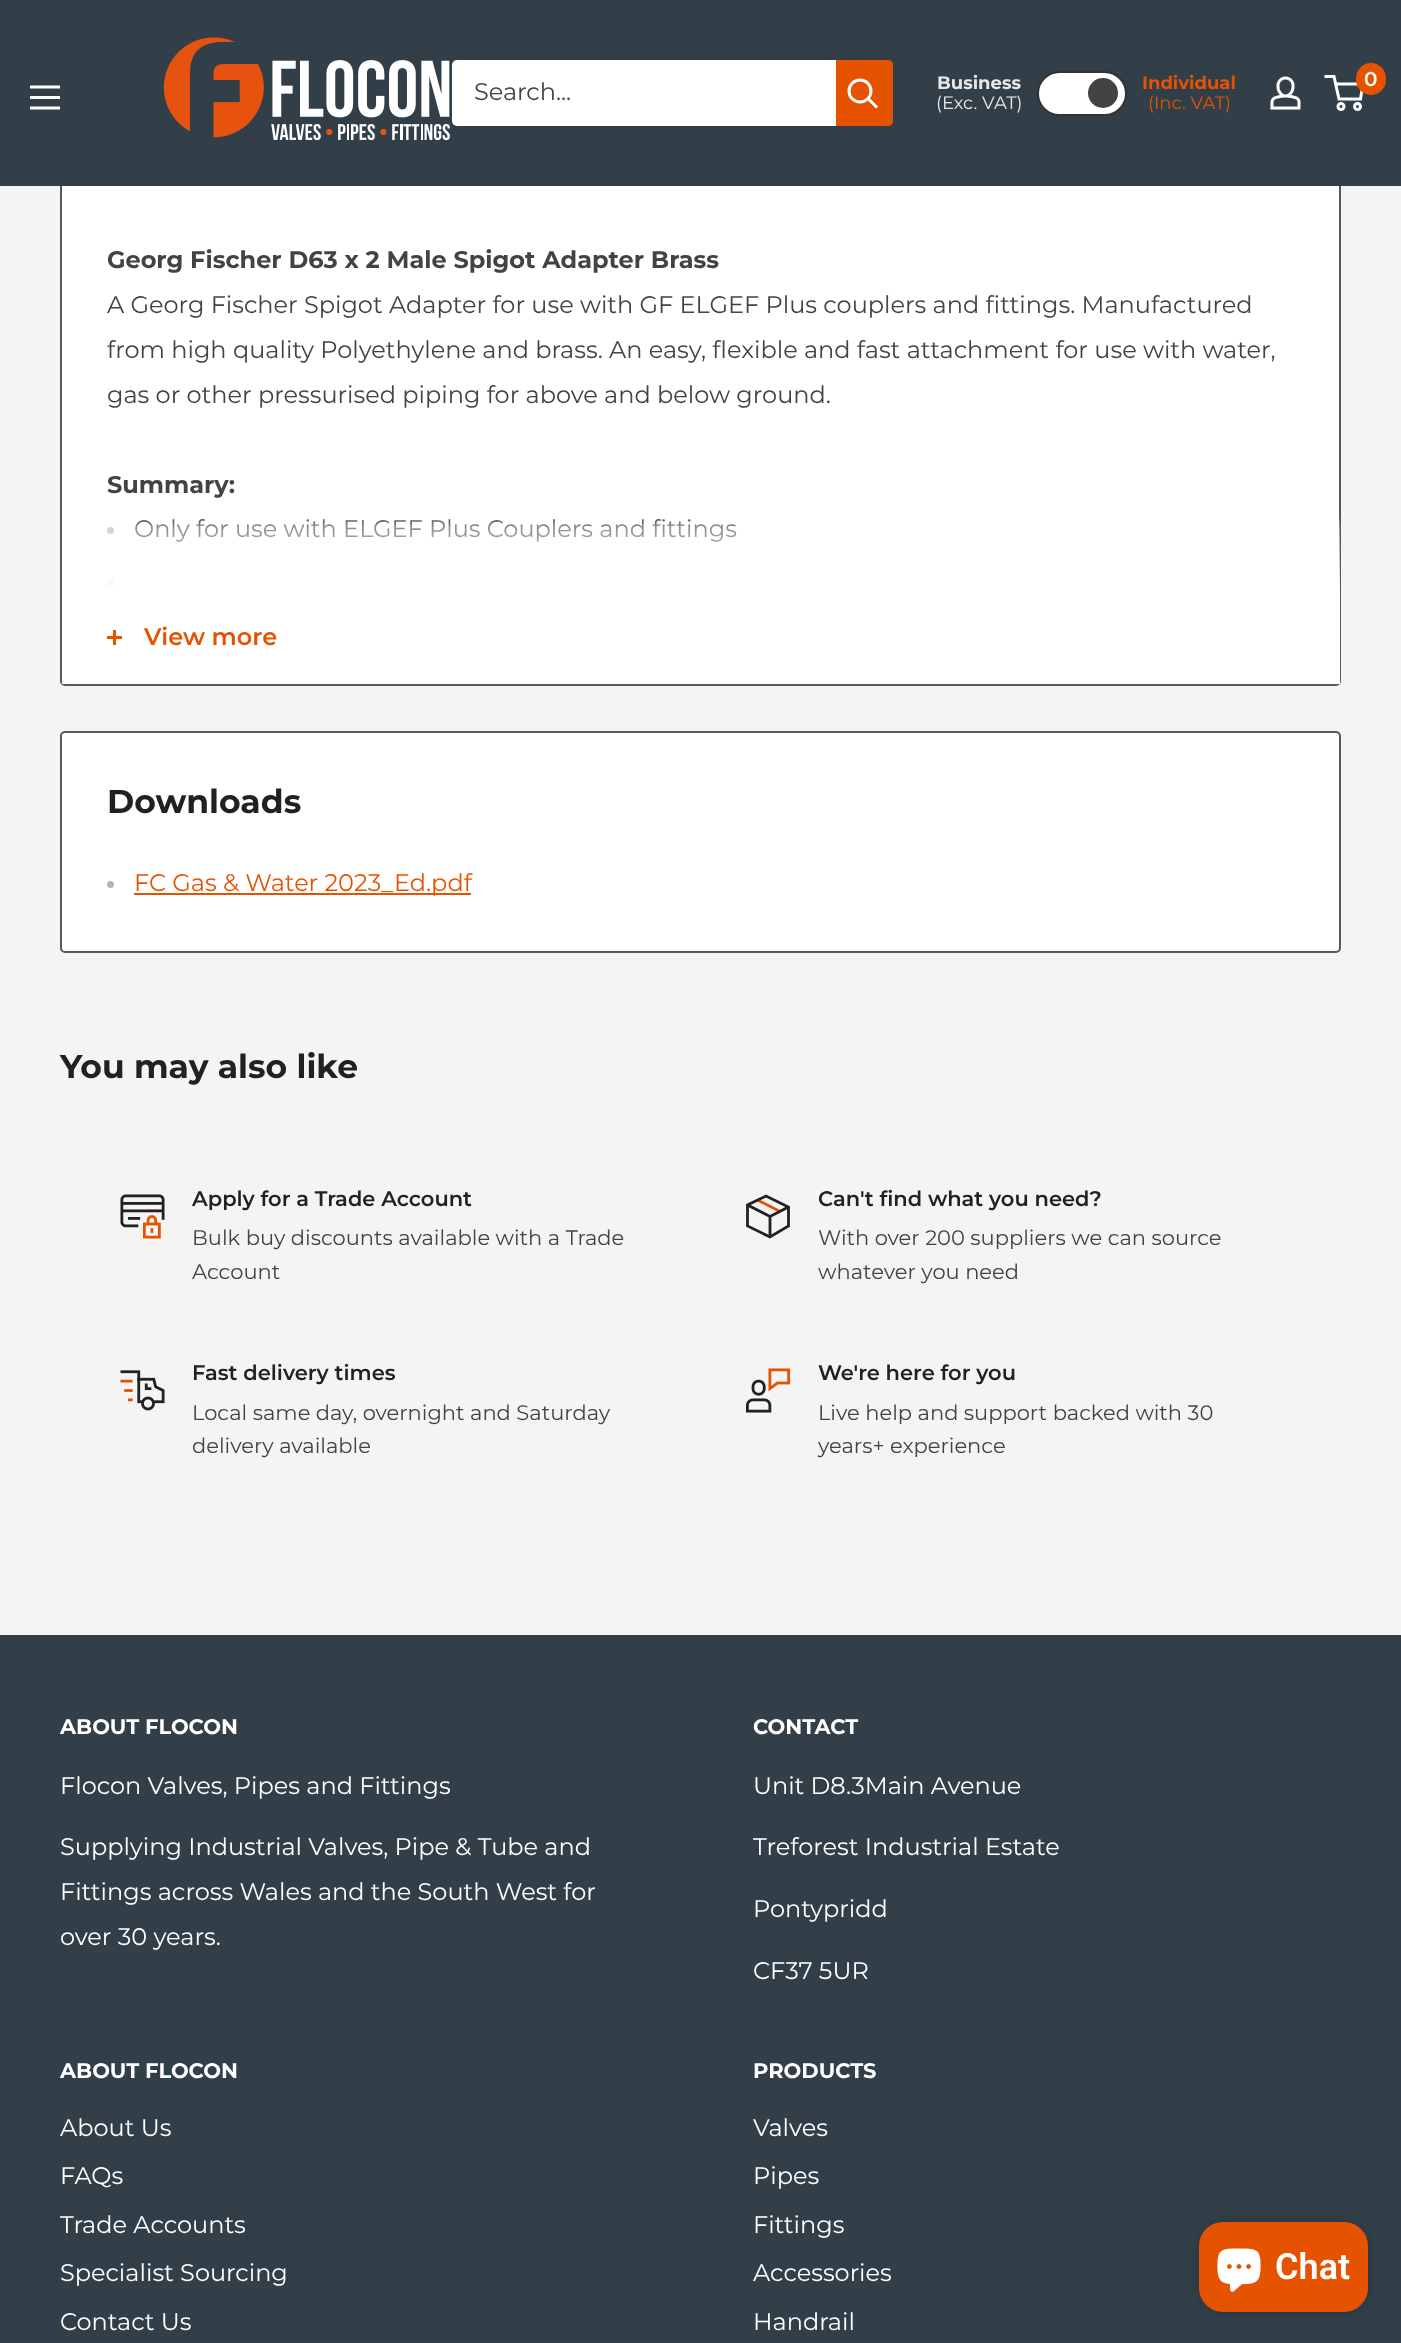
<svg xmlns="http://www.w3.org/2000/svg" width="1401" height="2343">
<defs>
<linearGradient id="g1" gradientUnits="userSpaceOnUse" x1="701" y1="516" x2="701" y2="591"><stop offset="0" stop-color="#fff" stop-opacity="0"/><stop offset="0.15" stop-color="#fff" stop-opacity="0.4"/><stop offset="1" stop-color="#fff"/></linearGradient>
</defs>
<rect width="100%" height="100%" fill="#f4f4f4"/>
<rect x="61" y="109" width="1279" height="576" rx="4" fill="#fff" stroke="#585858" stroke-width="2"/>
<rect width="1401" height="186" fill="#323e48"/>
<image x="30" y="85" width="30" height="25" href="media/1.png"/>
<image x="163" y="37" width="287" height="104" href="media/2.png"/>
<rect x="452" y="60" width="421" height="66" rx="5" fill="#fff"/>
<text x="474" y="100" style="font-family:Montserrat;font-size:24px;fill:#434343">Search...</text>
<path d="M836 60h52c3 0 5 2 5 5v56c0 3-2 5-5 5h-52z" fill="#e65300"/>
<path d="M876 106.5l-7.5-7.5" fill="none" stroke="#fff" stroke-width="3" stroke-linecap="square"/>
<circle cx="860" cy="91" r="11" fill="none" stroke="#fff" stroke-width="3"/>
<text x="937" y="89" style="font-family:Montserrat;font-size:18px;font-weight:bold;fill:#e8e8e8">Business</text>
<text x="936" y="109" style="font-family:Montserrat;font-size:18px;fill:#e8e8e8">(Exc. VAT)</text>
<rect x="1038" y="72" width="88" height="43" rx="21.5" fill="#fff" stroke="#333" stroke-width="2"/>
<circle cx="1103" cy="93" r="15" fill="#434343"/>
<text x="1142" y="89" style="font-family:Montserrat;font-size:18px;font-weight:bold;fill:#e65300">Individual</text>
<text x="1148" y="109" style="font-family:Montserrat;font-size:18px;fill:#e65300">(Inc. VAT)</text>
<image x="1270" y="76" width="31" height="34" href="media/3.png"/>
<circle cx="1341" cy="106.5" r="3" fill="none" stroke="#fff" stroke-width="3"/>
<circle cx="1357.5" cy="106.5" r="3" fill="none" stroke="#fff" stroke-width="3"/>
<path d="M1335.5 84h27.5l-2.5 15h-21.5l-5-22.5h-9.5" fill="none" stroke="#fff" stroke-width="3"/>
<rect x="1356" y="63" width="30" height="32" rx="15" fill="#e65300"/>
<text x="1364" y="86" style="font-family:Montserrat;font-size:20px;font-weight:600;fill:#fff">0</text>
<text x="107" y="268" style="font-family:Montserrat;font-size:24px;font-weight:bold;fill:#434343">Georg Fischer D63 x 2 Male Spigot Adapter Brass</text>
<text x="107" y="313" style="font-family:Montserrat;font-size:24px;fill:#434343">A Georg Fischer Spigot Adapter for use with GF ELGEF Plus couplers and fittings. Manufactured</text>
<text x="107" y="358" style="font-family:Montserrat;font-size:24px;fill:#434343">from high quality Polyethylene and brass. An easy, flexible and fast attachment for use with water,</text>
<text x="107" y="403" style="font-family:Montserrat;font-size:24px;fill:#434343">gas or other pressurised piping for above and below ground.</text>
<text x="107" y="493" style="font-family:Montserrat;font-size:24px;font-weight:bold;fill:#434343">Summary:</text>
<circle cx="110.5" cy="530.5" r="3.5" fill="#b4b4b4"/>
<text x="134" y="537" style="font-family:Montserrat;font-size:24px;fill:#434343">Only for use with ELGEF Plus Couplers and fittings</text>
<rect x="107" y="579" width="7" height="8" rx="3.5" fill="#b4b4b4"/>
<rect x="62" y="591" width="1278" height="93" fill="#fff"/>
<rect x="107" y="517" width="1233" height="74" fill="url(#g1)"/>
<rect x="113" y="630" width="3" height="15" fill="#e65300"/>
<rect x="107" y="636" width="15" height="3" fill="#e65300"/>
<text x="144" y="645" style="font-family:Montserrat;font-size:24px;font-weight:600;fill:#e65300">View more</text>
<rect x="61" y="732" width="1279" height="220" rx="4" fill="#fff" stroke="#585858" stroke-width="2"/>
<text x="107" y="813" style="font-family:Montserrat;font-size:33px;font-weight:bold;fill:#222021">Downloads</text>
<circle cx="110.5" cy="884.5" r="3.5" fill="#b4b4b4"/>
<rect x="134" y="893" width="337" height="2" fill="#e65300"/>
<text x="134" y="891" style="font-family:Montserrat;font-size:24px;fill:#e65300">FC Gas &amp; Water 2023_Ed.pdf</text>
<text x="60" y="1078" style="font-family:Montserrat;font-size:33px;font-weight:bold;fill:#222021">You may also like</text>
<image x="120" y="1194" width="45" height="45" href="media/4.png"/>
<text x="192" y="1206" style="font-family:Montserrat;font-size:21px;font-weight:600;fill:#222021">Apply for a Trade Account</text>
<text x="192" y="1245" style="font-family:Montserrat;font-size:21px;fill:#434343">Bulk buy discounts available with a Trade</text>
<text x="192" y="1279" style="font-family:Montserrat;font-size:21px;fill:#434343">Account</text>
<path d="M757.5 1200l22.5 11.5" fill="none" stroke="#e65300" stroke-width="2.8"/>
<path d="M788.5 1207l-18.5 9.5l-22.5-11.5m22.5 11.5v20.5" fill="none" stroke="#222021" stroke-width="2.8"/>
<path d="M788.5 1207v19l-18.5 11l-22.5-11v-21l18.5-9z" fill="none" stroke="#222021" stroke-width="2.8" stroke-linecap="square"/>
<text x="818" y="1206" style="font-family:Montserrat;font-size:21px;font-weight:600;fill:#222021">Can't find what you need?</text>
<text x="818" y="1245" style="font-family:Montserrat;font-size:21px;fill:#434343">With over 200 suppliers we can source</text>
<text x="818" y="1279" style="font-family:Montserrat;font-size:21px;fill:#434343">whatever you need</text>
<image x="120" y="1370" width="45" height="41" href="media/5.png"/>
<text x="192" y="1380" style="font-family:Montserrat;font-size:21px;font-weight:600;fill:#222021">Fast delivery times</text>
<text x="192" y="1420" style="font-family:Montserrat;font-size:21px;fill:#434343">Local same day, overnight and Saturday</text>
<text x="192" y="1453" style="font-family:Montserrat;font-size:21px;fill:#434343">delivery available</text>
<image x="746" y="1368" width="45" height="45" href="media/6.png"/>
<text x="818" y="1380" style="font-family:Montserrat;font-size:21px;font-weight:600;fill:#222021">We're here for you</text>
<text x="818" y="1420" style="font-family:Montserrat;font-size:21px;fill:#434343">Live help and support backed with 30</text>
<text x="818" y="1453" style="font-family:Montserrat;font-size:21px;fill:#434343">years+ experience</text>
<rect y="1635" width="1401" height="708" fill="#323e48"/>
<text x="60" y="1734" style="font-family:Montserrat;font-size:21px;font-weight:bold;fill:#fff">ABOUT FLOCON</text>
<text x="60" y="1794" style="font-family:Montserrat;font-size:24px;fill:#fff">Flocon Valves, Pipes and Fittings</text>
<text x="60" y="1855" style="font-family:Montserrat;font-size:24px;fill:#fff">Supplying Industrial Valves, Pipe &amp; Tube and</text>
<text x="60" y="1900" style="font-family:Montserrat;font-size:24px;fill:#fff">Fittings across Wales and the South West for</text>
<text x="60" y="1945" style="font-family:Montserrat;font-size:24px;fill:#fff">over 30 years.</text>
<text x="753" y="1734" style="font-family:Montserrat;font-size:21px;font-weight:bold;fill:#fff">CONTACT</text>
<text x="753" y="1794" style="font-family:Montserrat;font-size:24px;fill:#fff">Unit D8.3Main Avenue</text>
<text x="753" y="1855" style="font-family:Montserrat;font-size:24px;fill:#fff">Treforest Industrial Estate</text>
<text x="753" y="1917" style="font-family:Montserrat;font-size:24px;fill:#fff">Pontypridd</text>
<text x="753" y="1979" style="font-family:Montserrat;font-size:24px;fill:#fff">CF37 5UR</text>
<text x="60" y="2078" style="font-family:Montserrat;font-size:21px;font-weight:bold;fill:#fff">ABOUT FLOCON</text>
<text x="60" y="2136" style="font-family:Montserrat;font-size:24px;fill:#fff">About Us</text>
<text x="60" y="2184" style="font-family:Montserrat;font-size:24px;fill:#fff">FAQs</text>
<text x="60" y="2233" style="font-family:Montserrat;font-size:24px;fill:#fff">Trade Accounts</text>
<text x="60" y="2281" style="font-family:Montserrat;font-size:24px;fill:#fff">Specialist Sourcing</text>
<text x="60" y="2330" style="font-family:Montserrat;font-size:24px;fill:#fff">Contact Us</text>
<text x="753" y="2078" style="font-family:Montserrat;font-size:21px;font-weight:bold;fill:#fff">PRODUCTS</text>
<text x="753" y="2136" style="font-family:Montserrat;font-size:24px;fill:#fff">Valves</text>
<text x="753" y="2184" style="font-family:Montserrat;font-size:24px;fill:#fff">Pipes</text>
<text x="753" y="2233" style="font-family:Montserrat;font-size:24px;fill:#fff">Fittings</text>
<text x="753" y="2281" style="font-family:Montserrat;font-size:24px;fill:#fff">Accessories</text>
<text x="753" y="2330" style="font-family:Montserrat;font-size:24px;fill:#fff">Handrail</text>
<rect x="1199" y="2222" width="169" height="90" rx="24" fill="#00000026" filter="blur(4px)"/>
<rect x="1199" y="2222" width="169" height="90" rx="24" fill="#e65300"/>
<image x="1217" y="2248" width="44" height="44" href="media/7.png"/>
<text x="1275" y="2279" style="font-family:Roboto;font-size:36px;font-weight:600;fill:#fff">Chat</text>
</svg>
